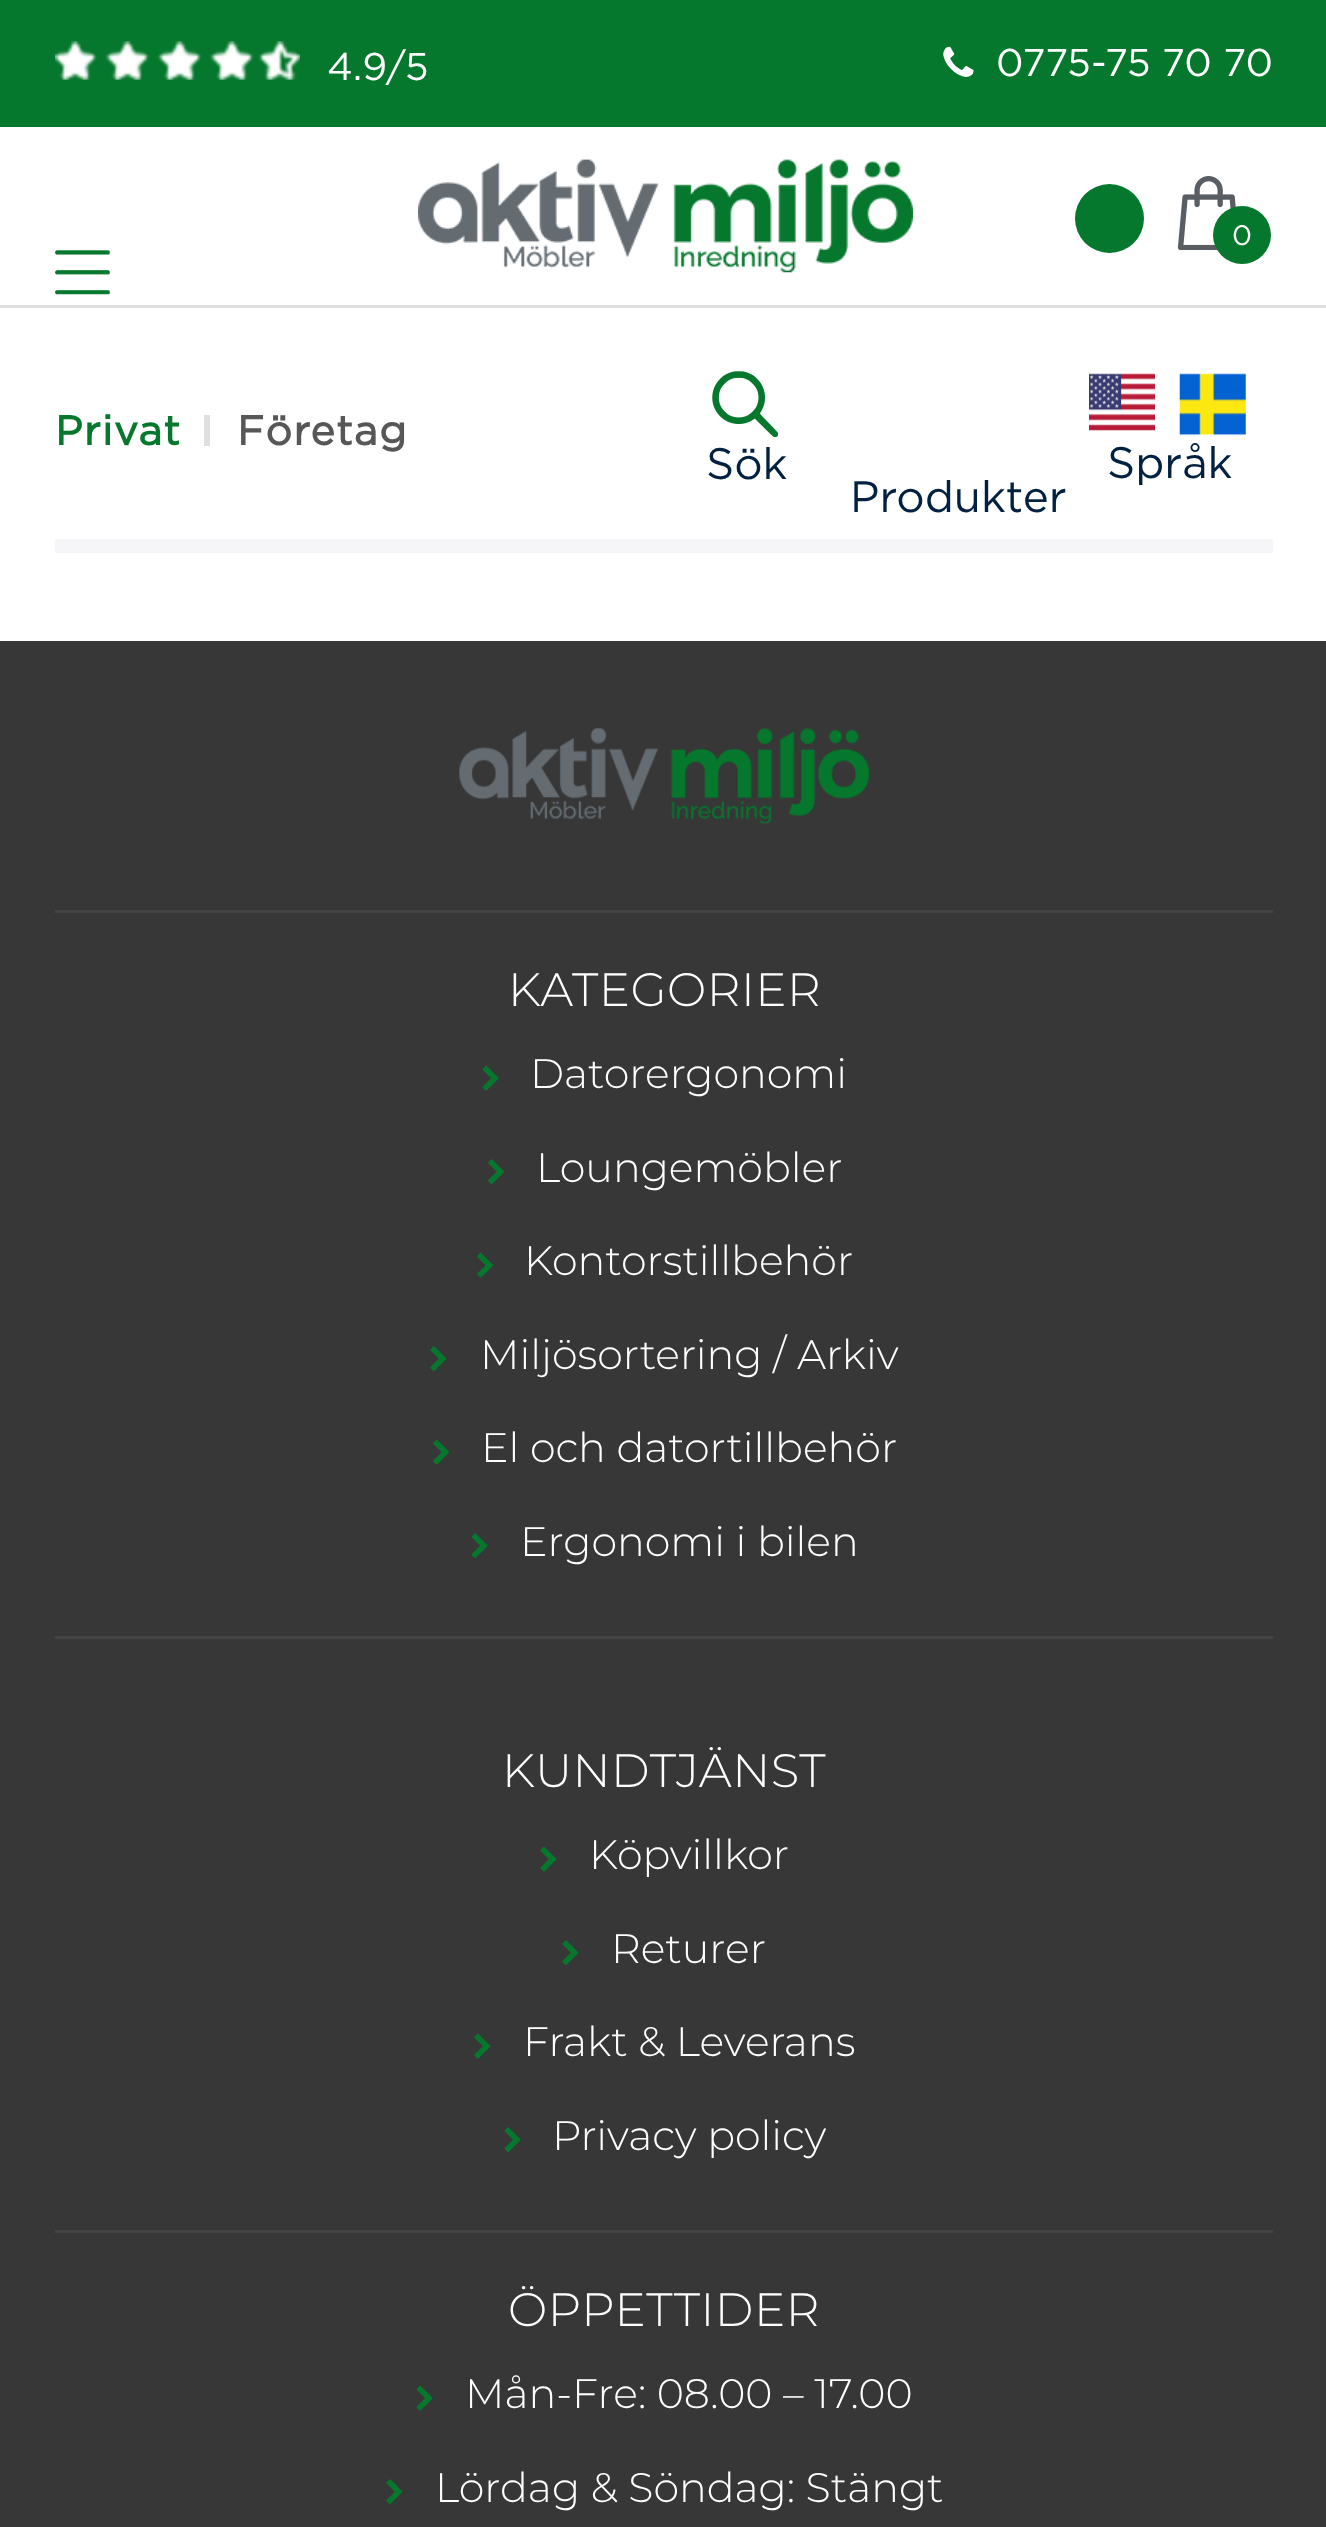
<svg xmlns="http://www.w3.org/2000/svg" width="1326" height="2527">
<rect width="100%" height="100%" fill="#fff"/>
<rect width="1326" height="127" fill="#06782d"/>
<image x="55" y="41" width="245" height="39" href="media/1.png"/>
<text x="327" y="80" style="font-family:Gotham;font-size:38.5px;fill:#fff">4.9/5</text>
<image x="943" y="46" width="31" height="31" href="media/2.png"/>
<text x="996" y="76" style="font-family:Gotham;font-size:38.5px;fill:#fff">0775-75 70 70</text>
<image x="418" y="159" width="495" height="114" href="media/3.png"/>
<circle cx="1109.5" cy="218.5" r="34.5" fill="#06782d"/>
<image x="1177" y="176" width="59" height="74" href="media/4.png"/>
<circle cx="1242" cy="235" r="29" fill="#06782d"/>
<text x="1232" y="245" style="font-family:Gotham;font-size:28px;fill:#fff">0</text>
<rect y="305" width="1326" height="3" fill="#dfdfdf"/>
<text x="55" y="445" style="font-family:Gotham;font-size:41.25px;font-weight:bold;letter-spacing:1.25px;fill:#06782d">Privat</text>
<rect x="204" y="415" width="6" height="31" fill="#dfdfdf"/>
<text x="237" y="445" style="font-family:Gotham;font-size:41.25px;font-weight:bold;letter-spacing:1.25px;fill:#575757">Företag</text>
<image x="712" y="371" width="66" height="66" href="media/5.png"/>
<text x="706" y="479" style="font-family:Gotham;font-size:44px;fill:#022141">Sök</text>
<image x="1089" y="373" width="66" height="58" href="media/6.png"/>
<image x="1179" y="373" width="67" height="63" href="media/7.png"/>
<text x="1107" y="478" style="font-family:Gotham;font-size:44px;fill:#022141">Språk</text>
<text x="850" y="512" style="font-family:Gotham;font-size:44px;fill:#022141">Produkter</text>
<image x="55" y="250" width="55" height="45" href="media/8.png"/>
<rect x="55" y="539" width="1218" height="14" fill="#f6f5f8"/>
<rect y="641" width="1326" height="1886" fill="#373737"/>
<rect x="55" y="910" width="1218" height="3" fill="#454444"/>
<image x="459" y="728" width="410" height="96" href="media/9.png"/>
<rect x="55" y="1636" width="1218" height="3" fill="#454444"/>
<text x="508" y="1006" style="font-family:Montserrat;font-size:46.75px;font-weight:300;letter-spacing:0.5px;fill:#fff">KATEGORIER</text>
<image x="482" y="1065" width="17" height="26" href="media/10.png"/>
<text x="530" y="1088" style="font-family:Montserrat;font-size:41.25px;font-weight:300;fill:#fff">Datorergonomi</text>
<image x="488" y="1159" width="16" height="25" href="media/11.png"/>
<text x="536" y="1182" style="font-family:Montserrat;font-size:41.25px;font-weight:300;fill:#fff">Loungemöbler</text>
<image x="477" y="1252" width="16" height="26" href="media/12.png"/>
<text x="524" y="1275" style="font-family:Montserrat;font-size:41.25px;font-weight:300;fill:#fff">Kontorstillbehör</text>
<image x="430" y="1346" width="17" height="25" href="media/13.png"/>
<text x="480" y="1369" style="font-family:Montserrat;font-size:41.25px;font-weight:300;fill:#fff">Miljösortering / Arkiv</text>
<image x="433" y="1439" width="16" height="26" href="media/12.png"/>
<text x="481" y="1462" style="font-family:Montserrat;font-size:41.25px;font-weight:300;fill:#fff">El och datortillbehör</text>
<image x="471" y="1533" width="17" height="25" href="media/14.png"/>
<text x="520" y="1556" style="font-family:Montserrat;font-size:41.25px;font-weight:300;fill:#fff">Ergonomi i bilen</text>
<rect x="55" y="2230" width="1218" height="3" fill="#454444"/>
<text x="502" y="1787" style="font-family:Montserrat;font-size:46.75px;font-weight:300;letter-spacing:0.5px;fill:#fff">KUNDTJÄNST</text>
<image x="540" y="1846" width="17" height="26" href="media/15.png"/>
<text x="589" y="1869" style="font-family:Montserrat;font-size:41.25px;font-weight:300;fill:#fff">Köpvillkor</text>
<image x="562" y="1940" width="17" height="25" href="media/13.png"/>
<text x="611" y="1963" style="font-family:Montserrat;font-size:41.25px;font-weight:300;fill:#fff">Returer</text>
<image x="474" y="2033" width="17" height="26" href="media/15.png"/>
<text x="523" y="2056" style="font-family:Montserrat;font-size:41.25px;font-weight:300;fill:#fff">Frakt &amp; Leverans</text>
<image x="504" y="2127" width="17" height="25" href="media/14.png"/>
<text x="552" y="2150" style="font-family:Montserrat;font-size:41.25px;font-weight:300;fill:#fff">Privacy policy</text>
<text x="508" y="2326" style="font-family:Montserrat;font-size:46.75px;font-weight:300;letter-spacing:0.5px;fill:#fff">ÖPPETTIDER</text>
<image x="416" y="2385" width="17" height="26" href="media/10.png"/>
<text x="465" y="2408" style="font-family:Montserrat;font-size:41.25px;font-weight:300;fill:#fff">Mån-Fre: 08.00 – 17.00</text>
<image x="386" y="2479" width="17" height="25" href="media/13.png"/>
<text x="435" y="2502" style="font-family:Montserrat;font-size:41.25px;font-weight:300;fill:#fff">Lördag &amp; Söndag: Stängt</text>
</svg>
